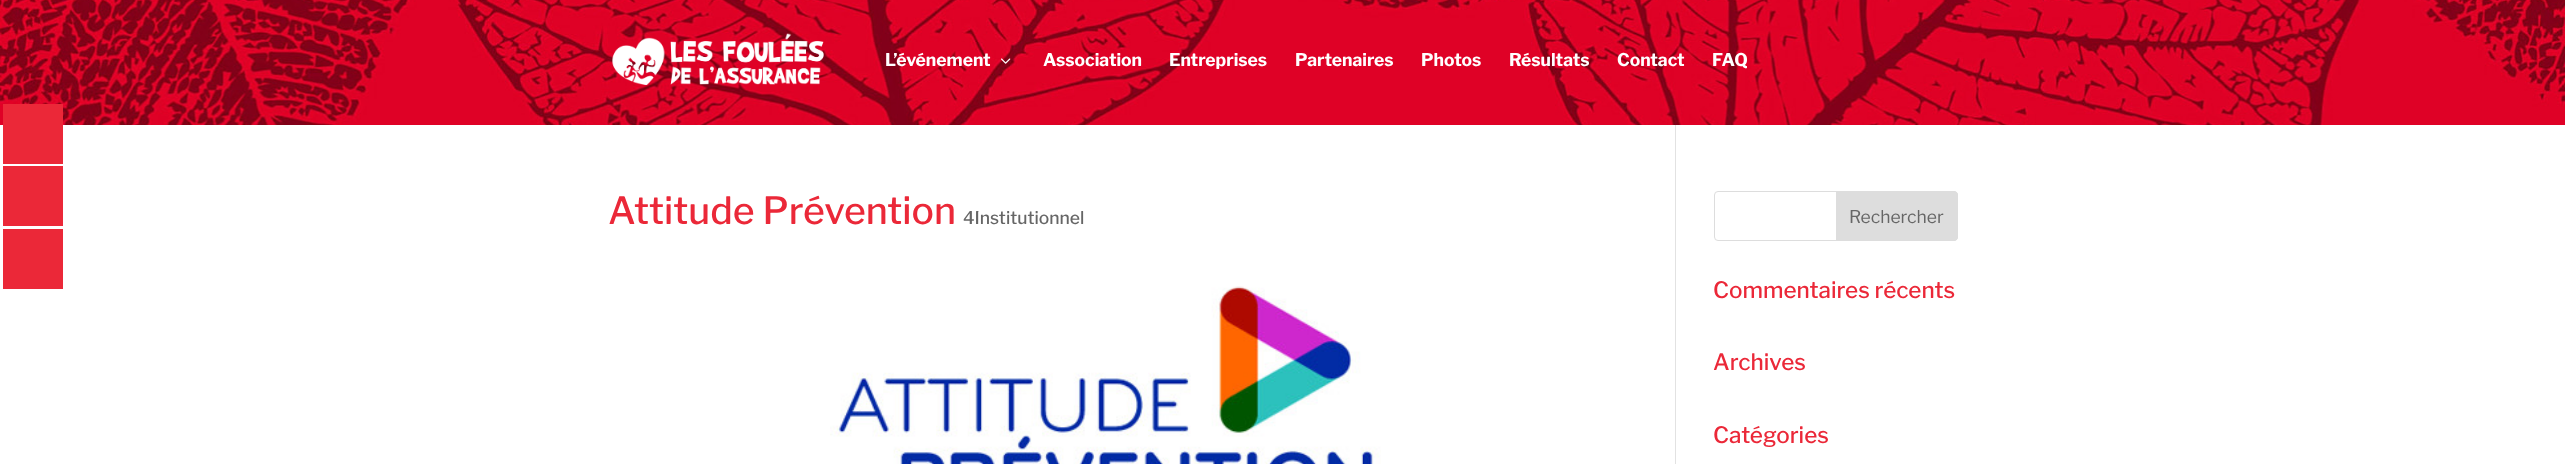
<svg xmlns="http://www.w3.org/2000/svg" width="2565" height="464">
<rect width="100%" height="100%" fill="#fff"/>
<rect x="1675" y="119" width="1" height="345" fill="#e2e2e2"/>
<image x="0" y="0" width="2565" height="125" href="media/1.png"/>
<rect x="3" y="104" width="60" height="60" fill="#eb2838"/>
<rect x="3" y="166" width="60" height="60" fill="#eb2838"/>
<rect x="3" y="229" width="60" height="60" fill="#eb2838"/>
<image x="612" y="33" width="212" height="52" href="media/2.png"/>
<text x="885" y="66" style="font-family:'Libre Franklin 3';font-size:17.5px;font-weight:100;fill:#fff">L’événement</text>
<image x="1001" y="58" width="10" height="6" href="media/3.png"/>
<text x="1043" y="66" style="font-family:'Libre Franklin 3';font-size:17.5px;font-weight:100;fill:#fff">Association</text>
<text x="1169" y="66" style="font-family:'Libre Franklin 3';font-size:17.5px;font-weight:100;fill:#fff">Entreprises</text>
<text x="1295" y="66" style="font-family:'Libre Franklin 3';font-size:17.5px;font-weight:100;fill:#fff">Partenaires</text>
<text x="1421" y="66" style="font-family:'Libre Franklin 3';font-size:17.5px;font-weight:100;fill:#fff">Photos</text>
<text x="1509" y="66" style="font-family:'Libre Franklin 3';font-size:17.5px;font-weight:100;fill:#fff">Résultats</text>
<text x="1617" y="66" style="font-family:'Libre Franklin 3';font-size:17.5px;font-weight:100;fill:#fff">Contact</text>
<text x="1712" y="66" style="font-family:'Libre Franklin 3';font-size:17.5px;font-weight:100;fill:#fff">FAQ</text>
<text x="608" y="224" style="font-family:Libre Franklin;font-size:37.5px;font-weight:100;fill:#eb2838">Attitude Prévention</text>
<text x="963" y="224" style="font-family:Libre Franklin;font-size:17.5px;font-weight:100;fill:#666">4Institutionnel</text>
<image x="830" y="286" width="551" height="178" href="media/4.png"/>
<rect x="1714.5" y="191.5" width="243" height="49" rx="3.5" fill="none" stroke="#ddd"/>
<path d="M1836.5 191.5h117.5c2 0 3.5 1.5 3.5 3.5v42c0 2-1.5 3.5-3.5 3.5h-117.5z" fill="#ddd" stroke="#ddd"/>
<text x="1849" y="223" style="font-family:'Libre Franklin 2';font-size:17.5px;font-weight:100;fill:#666">Rechercher</text>
<text x="1713" y="298" style="font-family:Libre Franklin;font-size:22.5px;font-weight:100;fill:#eb2838">Commentaires récents</text>
<text x="1713" y="370" style="font-family:Libre Franklin;font-size:22.5px;font-weight:100;fill:#eb2838">Archives</text>
<text x="1713" y="443" style="font-family:Libre Franklin;font-size:22.5px;font-weight:100;fill:#eb2838">Catégories</text>
</svg>
